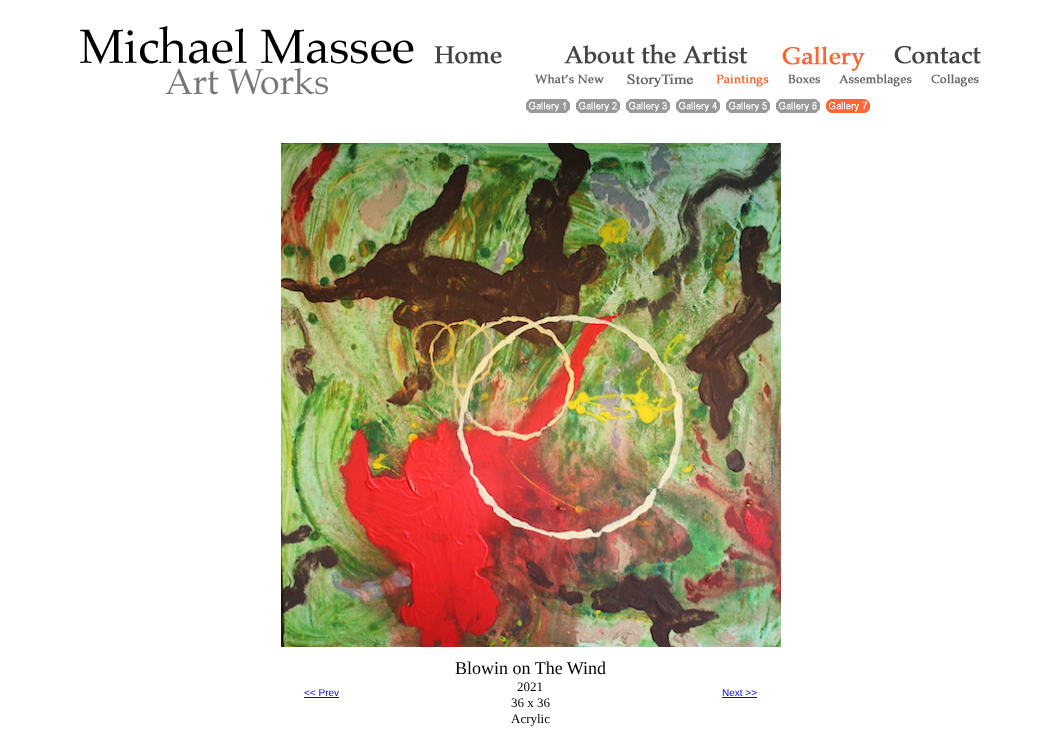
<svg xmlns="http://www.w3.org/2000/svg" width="1061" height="755">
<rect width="100%" height="100%" fill="#fff"/>
<image x="80" y="26" width="334" height="69" href="media/1.png"/>
<image x="434" y="46" width="68" height="18" href="media/2.png"/>
<image x="564" y="44" width="184" height="20" href="media/3.png"/>
<image x="782" y="46" width="83" height="25" href="media/4.png"/>
<image x="894" y="46" width="87" height="18" href="media/5.png"/>
<image x="535" y="74" width="69" height="10" href="media/6.png"/>
<image x="627" y="74" width="66" height="13" href="media/7.png"/>
<image x="716" y="74" width="53" height="13" href="media/8.png"/>
<image x="788" y="74" width="32" height="10" href="media/9.png"/>
<image x="839" y="74" width="73" height="13" href="media/10.png"/>
<image x="931" y="74" width="48" height="13" href="media/11.png"/>
<image x="526" y="99" width="44" height="14" href="media/12.png"/>
<image x="576" y="99" width="44" height="14" href="media/13.png"/>
<image x="626" y="99" width="44" height="14" href="media/14.png"/>
<image x="676" y="99" width="44" height="14" href="media/15.png"/>
<image x="726" y="99" width="44" height="14" href="media/16.png"/>
<image x="776" y="99" width="44" height="14" href="media/17.png"/>
<image x="826" y="99" width="44" height="14" href="media/18.png"/>
<image x="281" y="143" width="500" height="504" href="media/19.png"/>
<text x="304" y="696" style="font-family:Liberation Sans;font-size:10px;fill:#00f">&lt;&lt; Prev</text>
<rect x="304" y="697" width="35" height="1" fill="#00f"/>
<text x="455" y="674" style="font-family:Liberation Serif;font-size:18px;fill:#000">Blowin on The Wind</text>
<text x="517" y="691" style="font-family:Liberation Serif;font-size:13px;fill:#000">2021</text>
<text x="511" y="707" style="font-family:Liberation Serif;font-size:13px;fill:#000">36 x 36</text>
<text x="511" y="723" style="font-family:Liberation Serif;font-size:13px;fill:#000">Acrylic</text>
<text x="722" y="696" style="font-family:Liberation Sans;font-size:10px;fill:#00f">Next &gt;&gt;</text>
<rect x="722" y="697" width="35" height="1" fill="#00f"/>
</svg>
